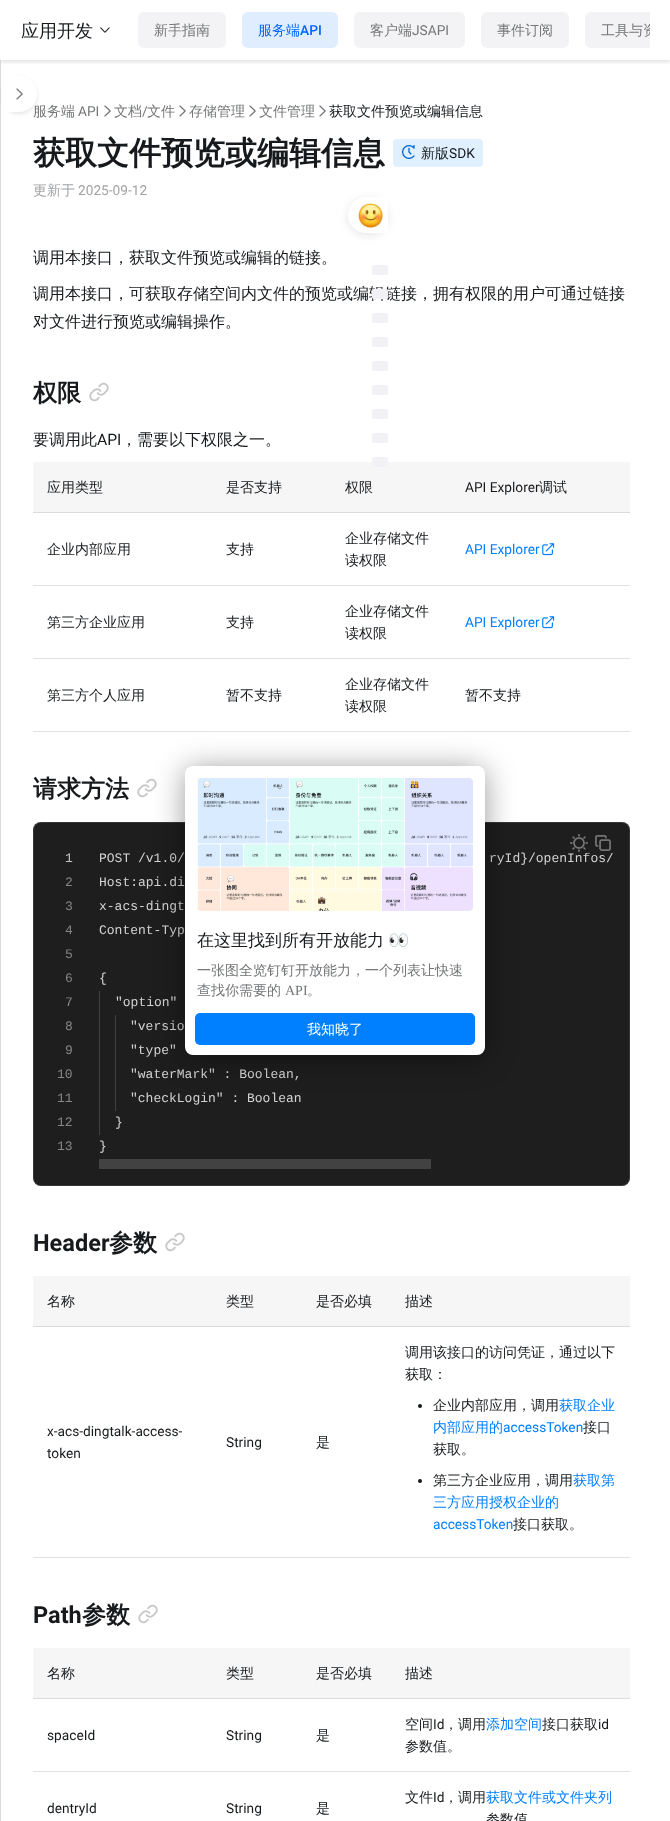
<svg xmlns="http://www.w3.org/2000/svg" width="670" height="1821">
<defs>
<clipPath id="clip1"><rect x="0" y="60" width="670" height="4"/></clipPath>
<clipPath id="clip2"><rect x="138" y="12" width="512" height="36"/></clipPath>
</defs>
<rect width="100%" height="100%" fill="#fff"/>
<rect y="60" width="1" height="1761" fill="#f6f6f6"/>
<g clip-path="url(#clip1)">
<rect y="2" width="670" height="60" fill="#0000001f" filter="blur(2px)"/>
</g>
<text x="21" y="37" style="font-family:WenQuanYi Zen Hei;font-size:18px;font-weight:500;fill:#171a1d">应用开发</text>
<image x="100" y="27" width="10" height="6" href="media/1.png"/>
<rect x="138" y="12" width="88" height="36" rx="6" fill="#f3f3f5"/>
<text x="154" y="35" style="font-family:WenQuanYi Zen Hei;font-size:14px;font-weight:500;fill:#747677">新手指南</text>
<rect x="242" y="12" width="96" height="36" rx="6" fill="#e0edff"/>
<text x="258" y="35" style="font-family:WenQuanYi Zen Hei;font-size:14px;font-weight:500;fill:#06f">服务端</text>
<text x="300" y="35" style="font-family:Roboto;font-size:14px;font-weight:500;fill:#06f">API</text>
<rect x="354" y="12" width="111" height="36" rx="6" fill="#f3f3f5"/>
<text x="370" y="35" style="font-family:WenQuanYi Zen Hei;font-size:14px;font-weight:500;fill:#747677">客户端</text>
<text x="412" y="35" style="font-family:Roboto;font-size:14px;fill:#747677">JSAPI</text>
<rect x="481" y="12" width="88" height="36" rx="6" fill="#f3f3f5"/>
<text x="497" y="35" style="font-family:WenQuanYi Zen Hei;font-size:14px;font-weight:500;fill:#747677">事件订阅</text>
<path d="M591 12h59v36h-59c-3.5 0-6-2.5-6-6v-24c0-3.5 2.5-6 6-6z" fill="#f3f3f5"/>
<g clip-path="url(#clip2)">
<text x="601" y="35" style="font-family:WenQuanYi Zen Hei;font-size:14px;font-weight:500;fill:#747677">工具与资</text>
</g>
<rect y="60" width="1" height="1761" fill="#7e868e3d"/>
<rect x="1" y="78" width="36" height="36" rx="18" fill="#0000001a" filter="blur(2px)"/>
<text x="33" y="116" style="font-family:WenQuanYi Zen Hei;font-size:14px;font-weight:500;fill:#747677">服务端</text>
<path d="M1 76h18c10 0 18 8 18 18c0 10-8 18-18 18h-18z" fill="#fff"/>
<image x="16" y="88" width="7" height="12" href="media/2.png"/>
<text x="78" y="116" style="font-family:Roboto;font-size:14px;fill:#747677">API</text>
<image x="104" y="105" width="7" height="12" href="media/2.png"/>
<text x="114" y="116" style="font-family:WenQuanYi Zen Hei;font-size:14px;font-weight:500;fill:#747677">文档</text>
<text x="142" y="116" style="font-family:Roboto;font-size:14px;fill:#747677">/</text>
<text x="147" y="116" style="font-family:WenQuanYi Zen Hei;font-size:14px;font-weight:500;fill:#747677">文件</text>
<image x="179" y="105" width="7" height="12" href="media/2.png"/>
<text x="189" y="116" style="font-family:WenQuanYi Zen Hei;font-size:14px;font-weight:500;fill:#747677">存储管理</text>
<image x="249" y="105" width="7" height="12" href="media/2.png"/>
<text x="259" y="116" style="font-family:WenQuanYi Zen Hei;font-size:14px;font-weight:500;fill:#747677">文件管理</text>
<image x="319" y="105" width="7" height="12" href="media/2.png"/>
<text x="329" y="116" style="font-family:WenQuanYi Zen Hei;font-size:14px;font-weight:500;fill:#171a1d">获取文件预览或编辑信息</text>
<text x="33" y="164" style="font-family:WenQuanYi Zen Hei;font-size:32px;font-weight:bold;fill:#171a1d">获取文件预览或编辑信息</text>
<rect x="393" y="139" width="90" height="28" rx="4" fill="#e0f0ff"/>
<image x="402" y="145" width="13" height="14" href="media/3.png"/>
<text x="421" y="158" style="font-family:WenQuanYi Zen Hei;font-size:14px;font-weight:500;fill:#171a1d">新版</text>
<text x="449" y="158" style="font-family:Roboto;font-size:14px;fill:#171a1d">SDK</text>
<text x="33" y="195" style="font-family:WenQuanYi Zen Hei;font-size:14px;font-weight:500;fill:#a2a3a5">更新于</text>
<text x="78" y="195" style="font-family:Roboto;font-size:14px;fill:#a2a3a5">2025-09-12</text>
<text x="33" y="263" style="font-family:WenQuanYi Zen Hei;font-size:16px;font-weight:500;fill:#171a1d">调用本接口，获取文件预览或编辑的链接。</text>
<text x="33" y="299" style="font-family:WenQuanYi Zen Hei;font-size:16px;font-weight:500;fill:#171a1d">调用本接口，可获取存储空间内文件的预览或编辑链接，拥有权限的用户可通过链接</text>
<text x="33" y="327" style="font-family:WenQuanYi Zen Hei;font-size:16px;font-weight:500;fill:#171a1d">对文件进行预览或编辑操作。</text>
<text x="33" y="401" style="font-family:WenQuanYi Zen Hei;font-size:24px;font-weight:bold;fill:#171a1d">权限</text>
<image x="89" y="382" width="20" height="20" href="media/4.png"/>
<text x="33" y="445" style="font-family:WenQuanYi Zen Hei;font-size:16px;font-weight:500;fill:#171a1d">要调用此</text>
<text x="97" y="445" style="font-family:Roboto;font-size:16px;fill:#171a1d">API</text>
<text x="121" y="445" style="font-family:WenQuanYi Zen Hei;font-size:16px;font-weight:500;fill:#171a1d">，需要以下权限之一。</text>
<rect x="33" y="512" width="597" height="1" fill="#d9dbdd"/>
<rect x="33" y="462" width="597" height="50" fill="#f6f6f6"/>
<text x="47" y="492" style="font-family:WenQuanYi Zen Hei;font-size:14px;font-weight:500;fill:#171a1d">应用类型</text>
<text x="226" y="492" style="font-family:WenQuanYi Zen Hei;font-size:14px;font-weight:500;fill:#171a1d">是否支持</text>
<text x="345" y="492" style="font-family:WenQuanYi Zen Hei;font-size:14px;font-weight:500;fill:#171a1d">权限</text>
<text x="465" y="492" style="font-family:Roboto;font-size:14px;fill:#171a1d">API Explorer</text>
<text x="539" y="492" style="font-family:WenQuanYi Zen Hei;font-size:14px;font-weight:500;fill:#171a1d">调试</text>
<rect x="33" y="585" width="597" height="1" fill="#e0e2e4"/>
<text x="47" y="554" style="font-family:WenQuanYi Zen Hei;font-size:14px;font-weight:500;fill:#171a1d">企业内部应用</text>
<text x="226" y="554" style="font-family:WenQuanYi Zen Hei;font-size:14px;font-weight:500;fill:#171a1d">支持</text>
<text x="345" y="543" style="font-family:WenQuanYi Zen Hei;font-size:14px;font-weight:500;fill:#171a1d">企业存储文件</text>
<text x="345" y="565" style="font-family:WenQuanYi Zen Hei;font-size:14px;font-weight:500;fill:#171a1d">读权限</text>
<text x="465" y="554" style="font-family:Roboto;font-size:14px;fill:#007fff">API Explorer</text>
<image x="542" y="543" width="13" height="13" href="media/5.png"/>
<rect x="33" y="658" width="597" height="1" fill="#e0e2e4"/>
<text x="47" y="627" style="font-family:WenQuanYi Zen Hei;font-size:14px;font-weight:500;fill:#171a1d">第三方企业应用</text>
<text x="226" y="627" style="font-family:WenQuanYi Zen Hei;font-size:14px;font-weight:500;fill:#171a1d">支持</text>
<text x="345" y="616" style="font-family:WenQuanYi Zen Hei;font-size:14px;font-weight:500;fill:#171a1d">企业存储文件</text>
<text x="345" y="638" style="font-family:WenQuanYi Zen Hei;font-size:14px;font-weight:500;fill:#171a1d">读权限</text>
<text x="465" y="627" style="font-family:Roboto;font-size:14px;fill:#007fff">API Explorer</text>
<image x="542" y="616" width="13" height="13" href="media/5.png"/>
<rect x="33" y="731" width="597" height="1" fill="#e0e2e4"/>
<text x="47" y="700" style="font-family:WenQuanYi Zen Hei;font-size:14px;font-weight:500;fill:#171a1d">第三方个人应用</text>
<text x="226" y="700" style="font-family:WenQuanYi Zen Hei;font-size:14px;font-weight:500;fill:#171a1d">暂不支持</text>
<text x="345" y="689" style="font-family:WenQuanYi Zen Hei;font-size:14px;font-weight:500;fill:#171a1d">企业存储文件</text>
<text x="345" y="711" style="font-family:WenQuanYi Zen Hei;font-size:14px;font-weight:500;fill:#171a1d">读权限</text>
<text x="465" y="700" style="font-family:WenQuanYi Zen Hei;font-size:14px;font-weight:500;fill:#171a1d">暂不支持</text>
<text x="33" y="797" style="font-family:WenQuanYi Zen Hei;font-size:24px;font-weight:bold;fill:#171a1d">请求方法</text>
<image x="137" y="778" width="20" height="20" href="media/4.png"/>
<rect x="33" y="822" width="597" height="364" rx="8" fill="#1e1e1e"/>
<rect x="33.5" y="822.5" width="596" height="363" rx="7.5" fill="none" stroke="#7e868e3d"/>
<text x="489" y="862" style="font-family:Liberation Mono;font-size:13px;fill:#d4d4d4">ryId}/openInfos/</text>
<rect x="586" y="852" width="3" height="1" fill="#1e1e1e"/>
<image x="570" y="834" width="18" height="18" href="media/6.png"/>
<rect x="611" y="852" width="2" height="1" fill="#1e1e1e"/>
<image x="595" y="835" width="16" height="16" href="media/7.png"/>
<text x="65" y="862" style="font-family:Liberation Mono;font-size:13px;fill:#c6c6c6">1</text>
<text x="65" y="886" style="font-family:Liberation Mono;font-size:13px;fill:#858585">2</text>
<text x="65" y="910" style="font-family:Liberation Mono;font-size:13px;fill:#858585">3</text>
<text x="65" y="934" style="font-family:Liberation Mono;font-size:13px;fill:#858585">4</text>
<text x="65" y="958" style="font-family:Liberation Mono;font-size:13px;fill:#858585">5</text>
<text x="65" y="982" style="font-family:Liberation Mono;font-size:13px;fill:#858585">6</text>
<text x="65" y="1006" style="font-family:Liberation Mono;font-size:13px;fill:#858585">7</text>
<text x="65" y="1030" style="font-family:Liberation Mono;font-size:13px;fill:#858585">8</text>
<text x="65" y="1054" style="font-family:Liberation Mono;font-size:13px;fill:#858585">9</text>
<text x="57" y="1078" style="font-family:Liberation Mono;font-size:13px;fill:#858585">10</text>
<text x="57" y="1102" style="font-family:Liberation Mono;font-size:13px;fill:#858585">11</text>
<text x="57" y="1126" style="font-family:Liberation Mono;font-size:13px;fill:#858585">12</text>
<text x="57" y="1150" style="font-family:Liberation Mono;font-size:13px;fill:#858585">13</text>
<text x="99" y="862" style="font-family:Liberation Mono;font-size:13px;fill:#d4d4d4">POST /v1.0/</text>
<text x="99" y="886" style="font-family:Liberation Mono;font-size:13px;fill:#d4d4d4">Host:api.di</text>
<text x="99" y="910" style="font-family:Liberation Mono;font-size:13px;fill:#d4d4d4">x-acs-dingt</text>
<text x="99" y="934" style="font-family:Liberation Mono;font-size:13px;fill:#d4d4d4">Content-Typ</text>
<text x="99" y="982" style="font-family:Liberation Mono;font-size:13px;fill:#d4d4d4">{</text>
<text x="115" y="1006" style="font-family:Liberation Mono;font-size:13px;fill:#d4d4d4">"option"</text>
<text x="130" y="1030" style="font-family:Liberation Mono;font-size:13px;fill:#d4d4d4">"versio</text>
<text x="130" y="1054" style="font-family:Liberation Mono;font-size:13px;fill:#d4d4d4">"type"</text>
<text x="130" y="1078" style="font-family:Liberation Mono;font-size:13px;fill:#d4d4d4">"waterMark" : Boolean,</text>
<text x="130" y="1102" style="font-family:Liberation Mono;font-size:13px;fill:#d4d4d4">"checkLogin" : Boolean</text>
<text x="115" y="1126" style="font-family:Liberation Mono;font-size:13px;fill:#d4d4d4">}</text>
<text x="99" y="1150" style="font-family:Liberation Mono;font-size:13px;fill:#d4d4d4">}</text>
<rect x="99" y="991" width="1" height="144" fill="#404040"/>
<rect x="115" y="1015" width="1" height="96" fill="#404040"/>
<rect x="99" y="1159" width="332" height="10" fill="#424242"/>
<text x="33" y="1251" style="font-family:Roboto;font-size:24px;font-weight:bold;fill:#171a1d">Header</text>
<text x="109" y="1251" style="font-family:WenQuanYi Zen Hei;font-size:24px;font-weight:bold;fill:#171a1d">参数</text>
<image x="165" y="1232" width="20" height="20" href="media/4.png"/>
<rect x="33" y="1326" width="597" height="1" fill="#d9dbdd"/>
<rect x="33" y="1276" width="597" height="50" fill="#f6f6f6"/>
<text x="47" y="1306" style="font-family:WenQuanYi Zen Hei;font-size:14px;font-weight:500;fill:#171a1d">名称</text>
<text x="226" y="1306" style="font-family:WenQuanYi Zen Hei;font-size:14px;font-weight:500;fill:#171a1d">类型</text>
<text x="316" y="1306" style="font-family:WenQuanYi Zen Hei;font-size:14px;font-weight:500;fill:#171a1d">是否必填</text>
<text x="405" y="1306" style="font-family:WenQuanYi Zen Hei;font-size:14px;font-weight:500;fill:#171a1d">描述</text>
<rect x="33" y="1557" width="597" height="1" fill="#e0e2e4"/>
<text x="47" y="1436" style="font-family:Roboto;font-size:14px;fill:#171a1d">x-acs-dingtalk-access-</text>
<text x="47" y="1458" style="font-family:Roboto;font-size:14px;fill:#171a1d">token</text>
<text x="226" y="1447" style="font-family:Roboto;font-size:14px;fill:#171a1d">String</text>
<text x="316" y="1447" style="font-family:WenQuanYi Zen Hei;font-size:14px;font-weight:500;fill:#171a1d">是</text>
<text x="405" y="1357" style="font-family:WenQuanYi Zen Hei;font-size:14px;font-weight:500;fill:#171a1d">调用该接口的访问凭证，通过以下</text>
<text x="405" y="1379" style="font-family:WenQuanYi Zen Hei;font-size:14px;font-weight:500;fill:#171a1d">获取：</text>
<circle cx="420" cy="1406" r="2" fill="#171a1d"/>
<text x="433" y="1410" style="font-family:WenQuanYi Zen Hei;font-size:14px;font-weight:500;fill:#171a1d">企业内部应用，调用</text>
<text x="559" y="1410" style="font-family:WenQuanYi Zen Hei;font-size:14px;font-weight:500;fill:#007fff">获取企业</text>
<text x="433" y="1432" style="font-family:WenQuanYi Zen Hei;font-size:14px;font-weight:500;fill:#007fff">内部应用的</text>
<text x="503" y="1432" style="font-family:Roboto;font-size:14px;fill:#007fff">accessToken</text>
<text x="583" y="1432" style="font-family:WenQuanYi Zen Hei;font-size:14px;font-weight:500;fill:#171a1d">接口</text>
<text x="433" y="1454" style="font-family:WenQuanYi Zen Hei;font-size:14px;font-weight:500;fill:#171a1d">获取。</text>
<circle cx="420" cy="1481" r="2" fill="#171a1d"/>
<text x="433" y="1485" style="font-family:WenQuanYi Zen Hei;font-size:14px;font-weight:500;fill:#171a1d">第三方企业应用，调用</text>
<text x="573" y="1485" style="font-family:WenQuanYi Zen Hei;font-size:14px;font-weight:500;fill:#007fff">获取第</text>
<text x="433" y="1507" style="font-family:WenQuanYi Zen Hei;font-size:14px;font-weight:500;fill:#007fff">三方应用授权企业的</text>
<text x="433" y="1529" style="font-family:Roboto;font-size:14px;fill:#007fff">accessToken</text>
<text x="513" y="1529" style="font-family:WenQuanYi Zen Hei;font-size:14px;font-weight:500;fill:#171a1d">接口获取。</text>
<text x="33" y="1623" style="font-family:Roboto;font-size:24px;font-weight:bold;fill:#171a1d">Path</text>
<text x="82" y="1623" style="font-family:WenQuanYi Zen Hei;font-size:24px;font-weight:bold;fill:#171a1d">参数</text>
<image x="138" y="1604" width="20" height="20" href="media/4.png"/>
<rect x="33" y="1698" width="597" height="1" fill="#d9dbdd"/>
<rect x="33" y="1648" width="597" height="50" fill="#f6f6f6"/>
<text x="47" y="1678" style="font-family:WenQuanYi Zen Hei;font-size:14px;font-weight:500;fill:#171a1d">名称</text>
<text x="226" y="1678" style="font-family:WenQuanYi Zen Hei;font-size:14px;font-weight:500;fill:#171a1d">类型</text>
<text x="316" y="1678" style="font-family:WenQuanYi Zen Hei;font-size:14px;font-weight:500;fill:#171a1d">是否必填</text>
<text x="405" y="1678" style="font-family:WenQuanYi Zen Hei;font-size:14px;font-weight:500;fill:#171a1d">描述</text>
<rect x="33" y="1771" width="597" height="1" fill="#e0e2e4"/>
<text x="47" y="1740" style="font-family:Roboto;font-size:14px;fill:#171a1d">spaceId</text>
<text x="226" y="1740" style="font-family:Roboto;font-size:14px;fill:#171a1d">String</text>
<text x="316" y="1740" style="font-family:WenQuanYi Zen Hei;font-size:14px;font-weight:500;fill:#171a1d">是</text>
<text x="405" y="1729" style="font-family:WenQuanYi Zen Hei;font-size:14px;font-weight:500;fill:#171a1d">空间</text>
<text x="433" y="1729" style="font-family:Roboto;font-size:14px;fill:#171a1d">Id</text>
<text x="444" y="1729" style="font-family:WenQuanYi Zen Hei;font-size:14px;font-weight:500;fill:#171a1d">，调用</text>
<text x="486" y="1729" style="font-family:WenQuanYi Zen Hei;font-size:14px;font-weight:500;fill:#007fff">添加空间</text>
<text x="542" y="1729" style="font-family:WenQuanYi Zen Hei;font-size:14px;font-weight:500;fill:#171a1d">接口获取</text>
<text x="598" y="1729" style="font-family:Roboto;font-size:14px;fill:#171a1d">id</text>
<text x="405" y="1751" style="font-family:WenQuanYi Zen Hei;font-size:14px;font-weight:500;fill:#171a1d">参数值。</text>
<text x="47" y="1813" style="font-family:Roboto;font-size:14px;fill:#171a1d">dentryId</text>
<text x="226" y="1813" style="font-family:Roboto;font-size:14px;fill:#171a1d">String</text>
<text x="316" y="1813" style="font-family:WenQuanYi Zen Hei;font-size:14px;font-weight:500;fill:#171a1d">是</text>
<text x="405" y="1802" style="font-family:WenQuanYi Zen Hei;font-size:14px;font-weight:500;fill:#171a1d">文件</text>
<text x="433" y="1802" style="font-family:Roboto;font-size:14px;fill:#171a1d">Id</text>
<text x="444" y="1802" style="font-family:WenQuanYi Zen Hei;font-size:14px;font-weight:500;fill:#171a1d">，调用</text>
<text x="486" y="1802" style="font-family:WenQuanYi Zen Hei;font-size:14px;font-weight:500;fill:#007fff">获取文件或文件夹列</text>
<text x="486" y="1824" style="font-family:WenQuanYi Zen Hei;font-size:14px;font-weight:500;fill:#171a1d">参数值</text>
<rect x="348" y="199" width="40" height="36" rx="18" fill="#0000001a" filter="blur(5px)"/>
<path d="M366 197h22v36h-22c-10 0-18-8-18-18c0-10 8-18 18-18z" fill="#fff"/>
<image x="358" y="203" width="25" height="25" href="media/8.png"/>
<rect x="372" y="265" width="16" height="10" rx="2" fill="#f2f2f6"/>
<rect x="372" y="289" width="16" height="10" rx="2" fill="#f2f2f6"/>
<rect x="372" y="313" width="16" height="10" rx="2" fill="#f2f2f6"/>
<rect x="372" y="337" width="16" height="10" rx="2" fill="#f2f2f6"/>
<rect x="372" y="361" width="16" height="10" rx="2" fill="#f2f2f6"/>
<rect x="372" y="385" width="16" height="10" rx="2" fill="#f2f2f6"/>
<rect x="372" y="409" width="16" height="10" rx="2" fill="#f2f2f6"/>
<rect x="372" y="433" width="16" height="10" rx="2" fill="#f2f2f6"/>
<rect x="372" y="457" width="16" height="10" rx="2" fill="#f2f2f6"/>
<rect x="185" y="769" width="300" height="289" rx="8" fill="#00000066" filter="blur(15px)"/>
<rect x="185" y="766" width="300" height="289" rx="8" fill="#fff"/>
<image x="197" y="778" width="276" height="133" href="media/9.png"/>
<text x="197" y="946" style="font-family:WenQuanYi Zen Hei;font-size:17px;font-weight:500;fill:#171a1d">在这里找到所有开放能力</text>
<text x="388" y="946" style="font-family:Noto Color Emoji;font-size:17px;fill:#171a1d">👀</text>
<text x="197" y="975" style="font-family:WenQuanYi Zen Hei;font-size:14px;font-weight:500;fill:#747677">一张图全览钉钉开放能力，一个列表让快速</text>
<text x="197" y="995" style="font-family:WenQuanYi Zen Hei;font-size:14px;font-weight:500;fill:#747677">查找你需要的</text>
<text x="285" y="995" style="font-family:Liberation Serif;font-size:14px;fill:#747677">API</text>
<text x="307" y="995" style="font-family:WenQuanYi Zen Hei;font-size:14px;font-weight:500;fill:#747677">。</text>
<rect x="195" y="1013" width="280" height="32" rx="5" fill="#007fff"/>
<text x="307" y="1034" style="font-family:WenQuanYi Zen Hei;font-size:14px;font-weight:500;fill:#fff">我知晓了</text>
</svg>
